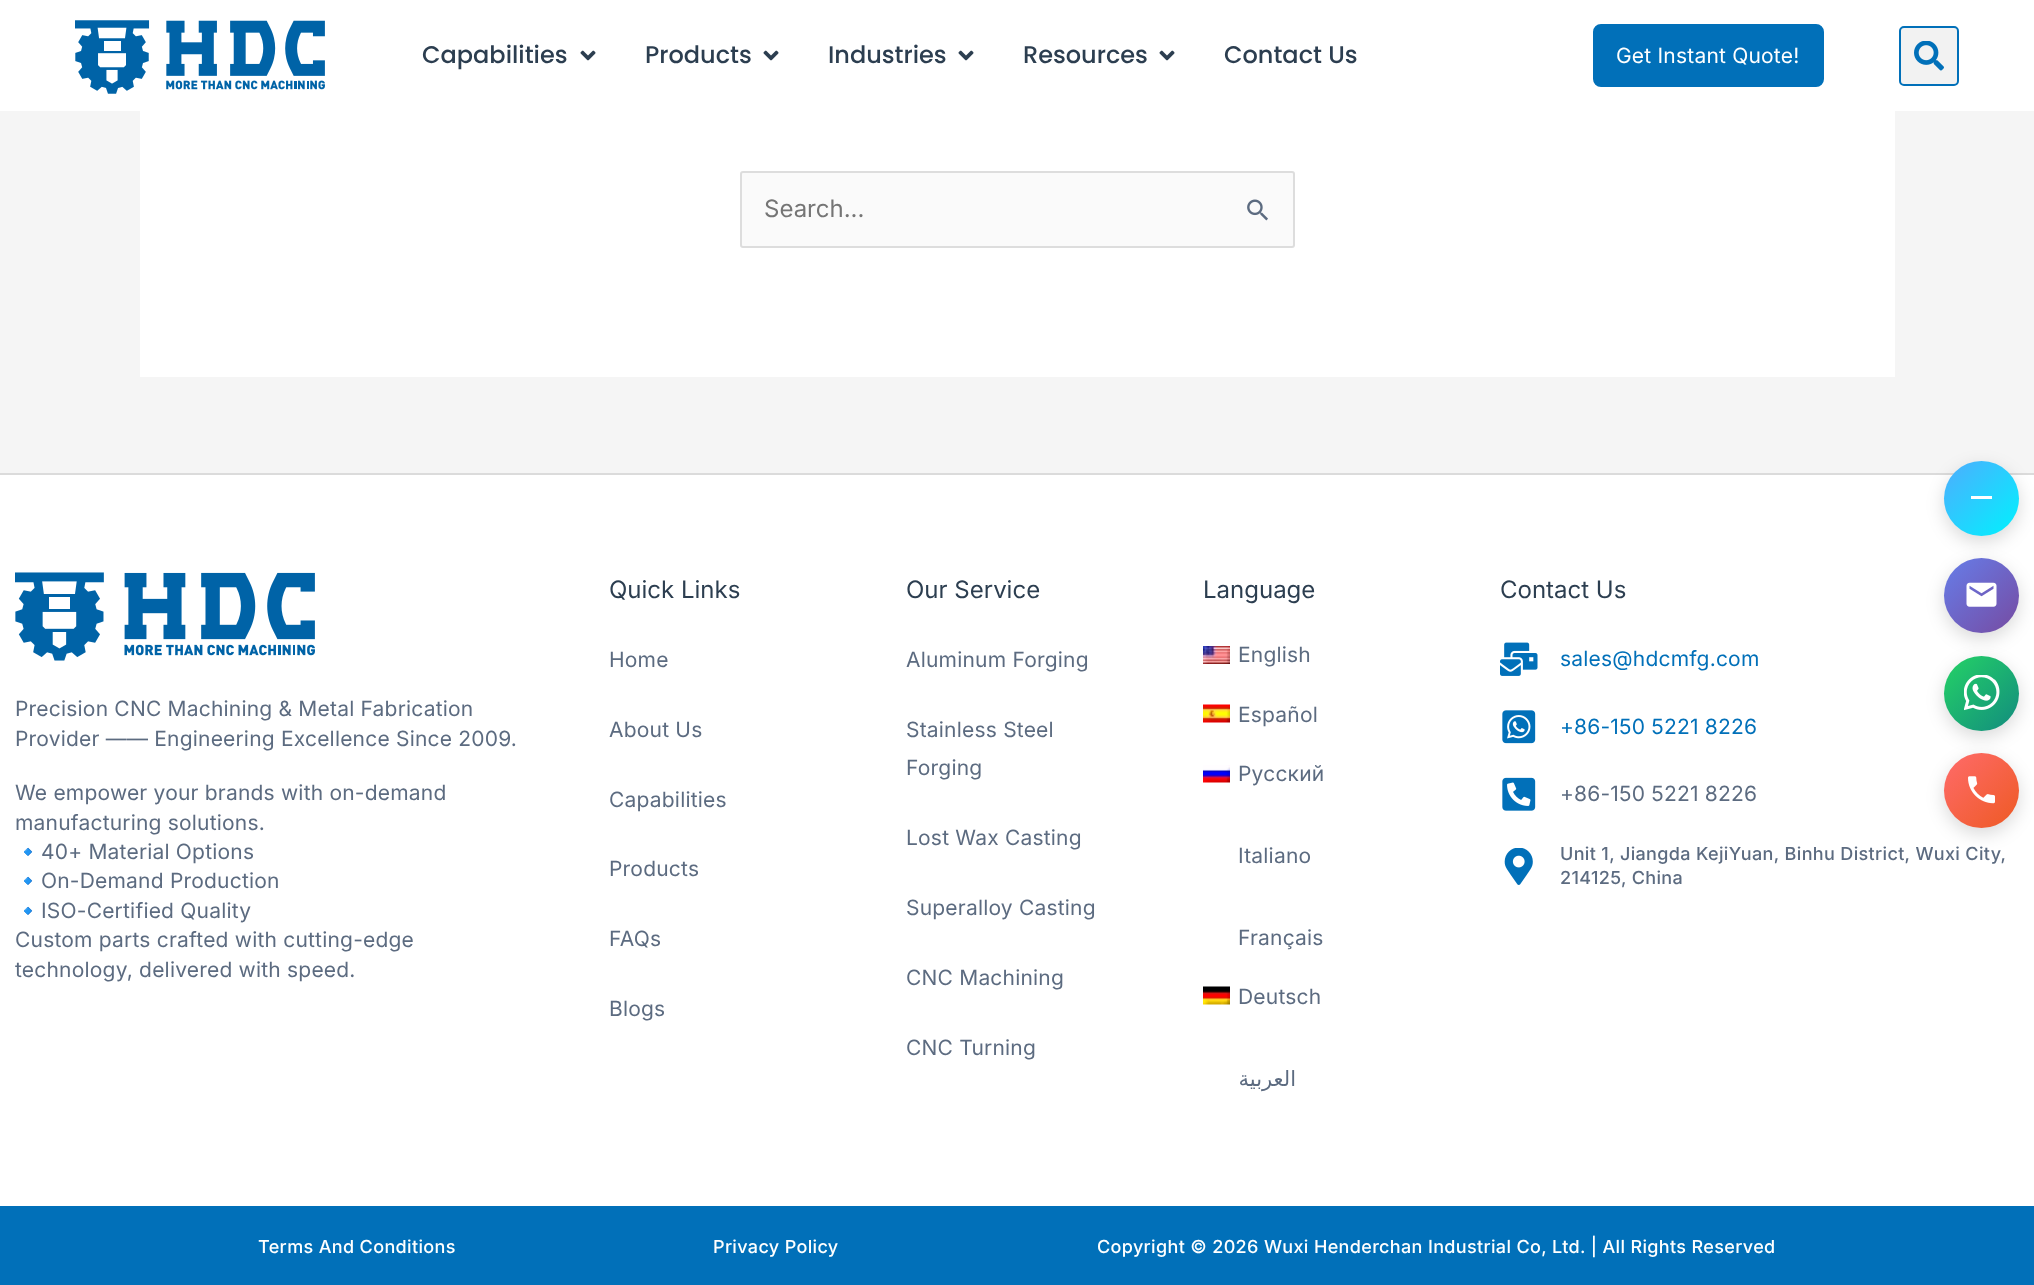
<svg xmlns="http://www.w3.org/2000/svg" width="2034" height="1285">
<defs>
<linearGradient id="g1" gradientUnits="userSpaceOnUse" x1="1944" y1="460" x2="2019" y2="535"><stop offset="0" stop-color="#4facfe"/><stop offset="1" stop-color="#00f2fe"/></linearGradient>
<linearGradient id="g2" gradientUnits="userSpaceOnUse" x1="1944" y1="557" x2="2019" y2="632"><stop offset="0" stop-color="#667eea"/><stop offset="1" stop-color="#764ba2"/></linearGradient>
<linearGradient id="g3" gradientUnits="userSpaceOnUse" x1="1944" y1="655" x2="2019" y2="730"><stop offset="0" stop-color="#25d366"/><stop offset="1" stop-color="#128c7e"/></linearGradient>
<linearGradient id="g4" gradientUnits="userSpaceOnUse" x1="1944" y1="752" x2="2019" y2="827"><stop offset="0" stop-color="#ff6b6b"/><stop offset="1" stop-color="#ee5a24"/></linearGradient>
</defs>
<rect width="100%" height="100%" fill="#f5f5f5"/>
<rect width="2034" height="111" fill="#fff"/>
<image x="75" y="20" width="250" height="74" href="media/1.png"/>
<text x="422" y="63" style="font-family:Poppins;font-size:24px;font-weight:500;fill:#2c3e50">Capabilities</text>
<image x="580" y="50" width="16" height="11" href="media/2.png"/>
<text x="645" y="63" style="font-family:Poppins;font-size:24px;font-weight:500;fill:#2c3e50">Products</text>
<image x="763" y="50" width="16" height="11" href="media/2.png"/>
<text x="828" y="63" style="font-family:Poppins;font-size:24px;font-weight:500;fill:#2c3e50">Industries</text>
<image x="958" y="50" width="16" height="11" href="media/2.png"/>
<text x="1023" y="63" style="font-family:Poppins;font-size:24px;font-weight:500;fill:#2c3e50">Resources</text>
<image x="1159" y="50" width="16" height="11" href="media/2.png"/>
<text x="1224" y="63" style="font-family:Poppins;font-size:24px;font-weight:500;fill:#2c3e50">Contact Us</text>
<rect x="1594" y="25" width="229" height="61" rx="7" fill="#0170b9" stroke="#0170b9" stroke-width="2"/>
<text x="1616" y="63" style="font-family:Inter;font-size:21px;letter-spacing:0.2px;fill:#fff">Get Instant Quote!</text>
<rect x="1900" y="27" width="58" height="58" rx="4" fill="#f2f2f2" stroke="#0170b9" stroke-width="2"/>
<image x="1914" y="41" width="30" height="30" href="media/3.png"/>
<rect y="475" width="2034" height="731" fill="#fff"/>
<rect y="473" width="2034" height="2" fill="#dbdbdb"/>
<rect x="1944" y="467" width="75" height="75" rx="37.5" fill="#00000026" filter="blur(9px)"/>
<circle cx="1981.5" cy="498.5" r="37.5" fill="url(#g1)"/>
<rect x="1971" y="496" width="21" height="3" fill="#fff"/>
<rect x="1944" y="564" width="75" height="75" rx="37.5" fill="#00000026" filter="blur(9px)"/>
<circle cx="1981.5" cy="595.5" r="37.5" fill="url(#g2)"/>
<image x="1966" y="582" width="31" height="25" href="media/4.png"/>
<rect x="1944" y="662" width="75" height="75" rx="37.5" fill="#00000026" filter="blur(9px)"/>
<circle cx="1981.5" cy="693.5" r="37.5" fill="url(#g3)"/>
<image x="1964" y="675" width="36" height="36" href="media/5.png"/>
<rect x="1944" y="759" width="75" height="75" rx="37.5" fill="#00000026" filter="blur(9px)"/>
<circle cx="1981.5" cy="790.5" r="37.5" fill="url(#g4)"/>
<image x="1968" y="776" width="27" height="28" href="media/6.png"/>
<rect x="140" y="111" width="1755" height="266" fill="#fff"/>
<rect x="741" y="172" width="553" height="75" rx="2" fill="#fafafa" stroke="#ddd" stroke-width="2"/>
<text x="764" y="217" style="font-family:Inter;font-size:24px;fill:#757575">Search...</text>
<image x="1247" y="199" width="21" height="22" href="media/7.png"/>
<image x="15" y="572" width="300" height="89" href="media/8.png"/>
<text x="15" y="716" style="font-family:Inter;font-size:21px;letter-spacing:0.2px;fill:#5c6b80">Precision CNC Machining &amp; Metal Fabrication</text>
<text x="15" y="746" style="font-family:Inter;font-size:21px;letter-spacing:0.2px;fill:#5c6b80">Provider —— Engineering Excellence Since 2009.</text>
<text x="15" y="800" style="font-family:Inter;font-size:21px;letter-spacing:0.2px;fill:#5c6b80">We empower your brands with on-demand</text>
<text x="15" y="830" style="font-family:Inter;font-size:21px;letter-spacing:0.2px;fill:#5c6b80">manufacturing solutions.</text>
<text x="15" y="859" style="font-family:Noto Color Emoji;font-size:21px;letter-spacing:0.2px;fill:#5c6b80">🔹</text>
<text x="41" y="859" style="font-family:Inter;font-size:21px;letter-spacing:0.2px;fill:#5c6b80">40+ Material Options</text>
<text x="15" y="888" style="font-family:Noto Color Emoji;font-size:21px;letter-spacing:0.2px;fill:#5c6b80">🔹</text>
<text x="41" y="888" style="font-family:Inter;font-size:21px;letter-spacing:0.2px;fill:#5c6b80">On-Demand Production</text>
<text x="15" y="918" style="font-family:Noto Color Emoji;font-size:21px;letter-spacing:0.2px;fill:#5c6b80">🔹</text>
<text x="41" y="918" style="font-family:Inter;font-size:21px;letter-spacing:0.2px;fill:#5c6b80">ISO-Certified Quality</text>
<text x="15" y="947" style="font-family:Inter;font-size:21px;letter-spacing:0.2px;fill:#5c6b80">Custom parts crafted with cutting-edge</text>
<text x="15" y="977" style="font-family:Inter;font-size:21px;letter-spacing:0.2px;fill:#5c6b80">technology, delivered with speed.</text>
<text x="609" y="598" style="font-family:Inter;font-size:24px;fill:#2c3e50">Quick Links</text>
<text x="609" y="667" style="font-family:Inter;font-size:21px;letter-spacing:0.2px;fill:#5c6b80">Home</text>
<text x="609" y="737" style="font-family:Inter;font-size:21px;letter-spacing:0.2px;fill:#5c6b80">About Us</text>
<text x="609" y="807" style="font-family:Inter;font-size:21px;letter-spacing:0.2px;fill:#5c6b80">Capabilities</text>
<text x="609" y="876" style="font-family:Inter;font-size:21px;letter-spacing:0.2px;fill:#5c6b80">Products</text>
<text x="609" y="946" style="font-family:Inter;font-size:21px;letter-spacing:0.2px;fill:#5c6b80">FAQs</text>
<text x="609" y="1016" style="font-family:Inter;font-size:21px;letter-spacing:0.2px;fill:#5c6b80">Blogs</text>
<text x="906" y="598" style="font-family:Inter;font-size:24px;fill:#2c3e50">Our Service</text>
<text x="906" y="667" style="font-family:Inter;font-size:21px;letter-spacing:0.2px;fill:#5c6b80">Aluminum Forging</text>
<text x="906" y="737" style="font-family:Inter;font-size:21px;letter-spacing:0.2px;fill:#5c6b80">Stainless Steel</text>
<text x="906" y="775" style="font-family:Inter;font-size:21px;letter-spacing:0.2px;fill:#5c6b80">Forging</text>
<text x="906" y="845" style="font-family:Inter;font-size:21px;letter-spacing:0.2px;fill:#5c6b80">Lost Wax Casting</text>
<text x="906" y="915" style="font-family:Inter;font-size:21px;letter-spacing:0.2px;fill:#5c6b80">Superalloy Casting</text>
<text x="906" y="985" style="font-family:Inter;font-size:21px;letter-spacing:0.2px;fill:#5c6b80">CNC Machining</text>
<text x="906" y="1055" style="font-family:Inter;font-size:21px;letter-spacing:0.2px;fill:#5c6b80">CNC Turning</text>
<text x="1203" y="598" style="font-family:Inter;font-size:24px;fill:#2c3e50">Language</text>
<image x="1203" y="646" width="27" height="18" href="media/9.png"/>
<text x="1238" y="662" style="font-family:Inter;font-size:21px;letter-spacing:0.2px;fill:#5c6b80">English</text>
<image x="1203" y="704" width="27" height="19" href="media/10.png"/>
<text x="1238" y="722" style="font-family:Inter;font-size:21px;letter-spacing:0.2px;fill:#5c6b80">Español</text>
<image x="1203" y="765" width="27" height="18" href="media/11.png"/>
<text x="1238" y="781" style="font-family:Inter;font-size:21px;letter-spacing:0.2px;fill:#5c6b80">Русский</text>
<text x="1238" y="863" style="font-family:Inter;font-size:21px;letter-spacing:0.2px;fill:#5c6b80">Italiano</text>
<text x="1238" y="945" style="font-family:Inter;font-size:21px;letter-spacing:0.2px;fill:#5c6b80">Français</text>
<image x="1203" y="986" width="27" height="19" href="media/12.png"/>
<text x="1238" y="1004" style="font-family:Inter;font-size:21px;letter-spacing:0.2px;fill:#5c6b80">Deutsch</text>
<text x="1296" y="1086" style="font-family:DejaVu Sans;font-size:21px;letter-spacing:0.2px;direction:rtl;fill:#5c6b80">العربية</text>
<text x="1500" y="598" style="font-family:Inter;font-size:24px;fill:#2c3e50">Contact Us</text>
<image x="1500" y="642" width="38" height="34" href="media/13.png"/>
<text x="1560" y="666" style="font-family:Inter;font-size:21px;letter-spacing:0.2px;fill:#0170b9">sales@hdcmfg.com</text>
<image x="1502" y="710" width="34" height="34" href="media/14.png"/>
<text x="1560" y="734" style="font-family:Inter;font-size:21px;letter-spacing:0.2px;fill:#0170b9">+86-150 5221 8226</text>
<image x="1502" y="777" width="34" height="34" href="media/15.png"/>
<text x="1560" y="801" style="font-family:Inter;font-size:21px;letter-spacing:0.2px;fill:#5c6b80">+86-150 5221 8226</text>
<image x="1504" y="848" width="29" height="37" href="media/16.png"/>
<text x="1560" y="860" style="font-family:Inter;font-size:18px;font-weight:500;letter-spacing:0.35px;fill:#5c6b80">Unit 1, Jiangda KejiYuan, Binhu District, Wuxi City,</text>
<text x="1560" y="884" style="font-family:Inter;font-size:18px;font-weight:500;letter-spacing:0.35px;fill:#5c6b80">214125, China</text>
<rect y="1206" width="2034" height="79" fill="#0170b9"/>
<text x="258" y="1253" style="font-family:Inter;font-size:18px;font-weight:500;letter-spacing:0.35px;fill:#fff">Terms And Conditions</text>
<text x="713" y="1253" style="font-family:Inter;font-size:18px;font-weight:500;letter-spacing:0.35px;fill:#fff">Privacy Policy</text>
<text x="1097" y="1253" style="font-family:Inter;font-size:18px;font-weight:500;letter-spacing:0.35px;fill:#fff">Copyright © 2026 Wuxi Henderchan Industrial Co, Ltd. | All Rights Reserved</text>
</svg>
